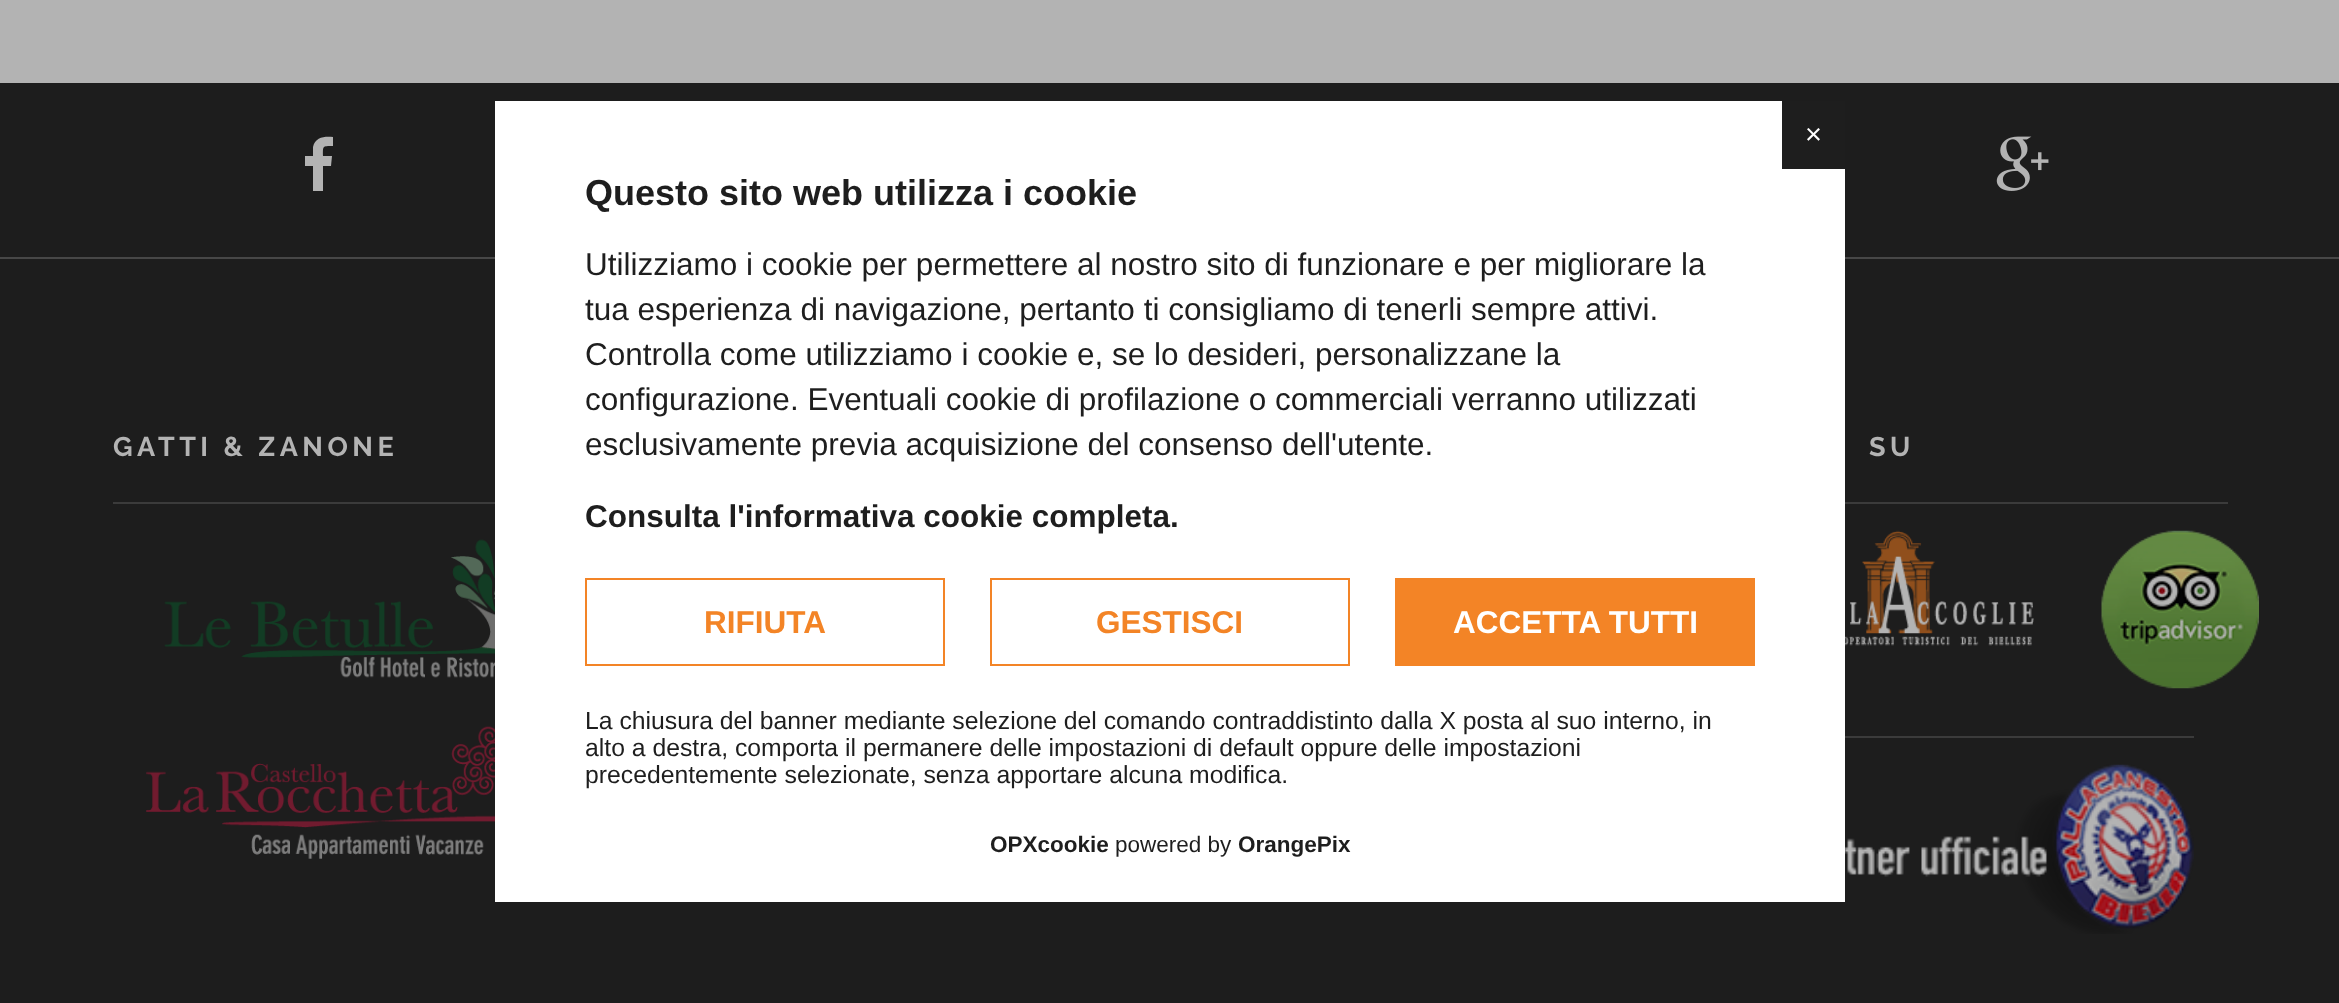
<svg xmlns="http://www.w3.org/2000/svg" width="2339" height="1003">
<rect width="100%" height="100%" fill="#b3b3b3"/>
<rect y="83" width="2339" height="174" fill="#1d1d1d"/>
<rect y="259" width="2339" height="744" fill="#1d1d1d"/>
<rect y="257" width="2339" height="2" fill="#474747"/>
<rect x="495" y="101" width="1350" height="801" fill="#fff"/>
<rect x="1782" y="101" width="63" height="68" fill="#1e1e1e"/>
<text x="1805" y="144" style="font-family:Liberation Sans;font-size:29px;fill:#fff">×</text>
<text x="585" y="205" style="font-family:Liberation Sans;font-size:36px;font-weight:bold;fill:#1e1e1e">Questo sito web utilizza i cookie</text>
<text x="585" y="275" style="font-family:Liberation Sans;font-size:31.5px;fill:#1e1e1e">Utilizziamo i cookie per permettere al nostro sito di funzionare e per migliorare la</text>
<text x="585" y="320" style="font-family:Liberation Sans;font-size:31.5px;fill:#1e1e1e">tua esperienza di navigazione, pertanto ti consigliamo di tenerli sempre attivi.</text>
<text x="585" y="365" style="font-family:Liberation Sans;font-size:31.5px;fill:#1e1e1e">Controlla come utilizziamo i cookie e, se lo desideri, personalizzane la</text>
<text x="585" y="410" style="font-family:Liberation Sans;font-size:31.5px;fill:#1e1e1e">configurazione. Eventuali cookie di profilazione o commerciali verranno utilizzati</text>
<text x="585" y="455" style="font-family:Liberation Sans;font-size:31.5px;fill:#1e1e1e">esclusivamente previa acquisizione del consenso dell'utente.</text>
<text x="585" y="527" style="font-family:Liberation Sans;font-size:31.5px;font-weight:bold;fill:#1e1e1e">Consulta l'informativa cookie completa.</text>
<rect x="586" y="579" width="358" height="86" fill="none" stroke="#f38426" stroke-width="2"/>
<text x="704" y="633" style="font-family:Liberation Sans;font-size:31.5px;font-weight:bold;fill:#f38426">RIFIUTA</text>
<rect x="991" y="579" width="358" height="86" fill="none" stroke="#f38426" stroke-width="2"/>
<text x="1096" y="633" style="font-family:Liberation Sans;font-size:31.5px;font-weight:bold;fill:#f38426">GESTISCI</text>
<rect x="1395" y="578" width="360" height="88" fill="#f38426"/>
<text x="1453" y="633" style="font-family:Liberation Sans;font-size:31.5px;font-weight:bold;fill:#fff">ACCETTA TUTTI</text>
<text x="585" y="729" style="font-family:Liberation Sans;font-size:24.75px;fill:#1e1e1e">La chiusura del banner mediante selezione del comando contraddistinto dalla X posta al suo interno, in</text>
<text x="585" y="756" style="font-family:Liberation Sans;font-size:24.75px;fill:#1e1e1e">alto a destra, comporta il permanere delle impostazioni di default oppure delle impostazioni</text>
<text x="585" y="783" style="font-family:Liberation Sans;font-size:24.75px;fill:#1e1e1e">precedentemente selezionate, senza apportare alcuna modifica.</text>
<text x="990" y="852" style="font-family:Liberation Sans;font-size:22.5px;font-weight:bold;fill:#1e1e1e">OPXcookie</text>
<text x="1115" y="852" style="font-family:Liberation Sans;font-size:22.5px;fill:#1e1e1e">powered by</text>
<text x="1238" y="852" style="font-family:Liberation Sans;font-size:22.5px;font-weight:bold;fill:#1e1e1e">OrangePix</text>
<path d="M333 137v9c-11 0-10 0-10 10h9l-1 10h-8v25h-10v-25h-8v-10h8v-9c2-10 12-11 20-10z" fill="#b3b3b3"/>
<image x="1996" y="136" width="53" height="55" href="media/1.png"/>
<text x="113" y="456" style="font-family:Raleway;font-size:27px;font-weight:bold;letter-spacing:4.5px;fill:#b3b3b3">GATTI &amp; ZANONE</text>
<rect x="113" y="502" width="382" height="2" fill="#3b3b3b"/>
<image x="164" y="539" width="331" height="139" href="media/2.png"/>
<image x="146" y="726" width="349" height="133" href="media/3.png"/>
<text x="1869" y="456" style="font-family:Raleway;font-size:27px;font-weight:bold;letter-spacing:4.5px;fill:#b3b3b3">SU</text>
<rect x="1845" y="502" width="383" height="2" fill="#3b3b3b"/>
<image x="1845" y="530" width="189" height="116" href="media/4.png"/>
<image x="2101" y="530" width="158" height="159" href="media/5.png"/>
<rect x="1845" y="736" width="349" height="2" fill="#3b3b3b"/>
<image x="1845" y="764" width="349" height="170" href="media/6.png"/>
</svg>
